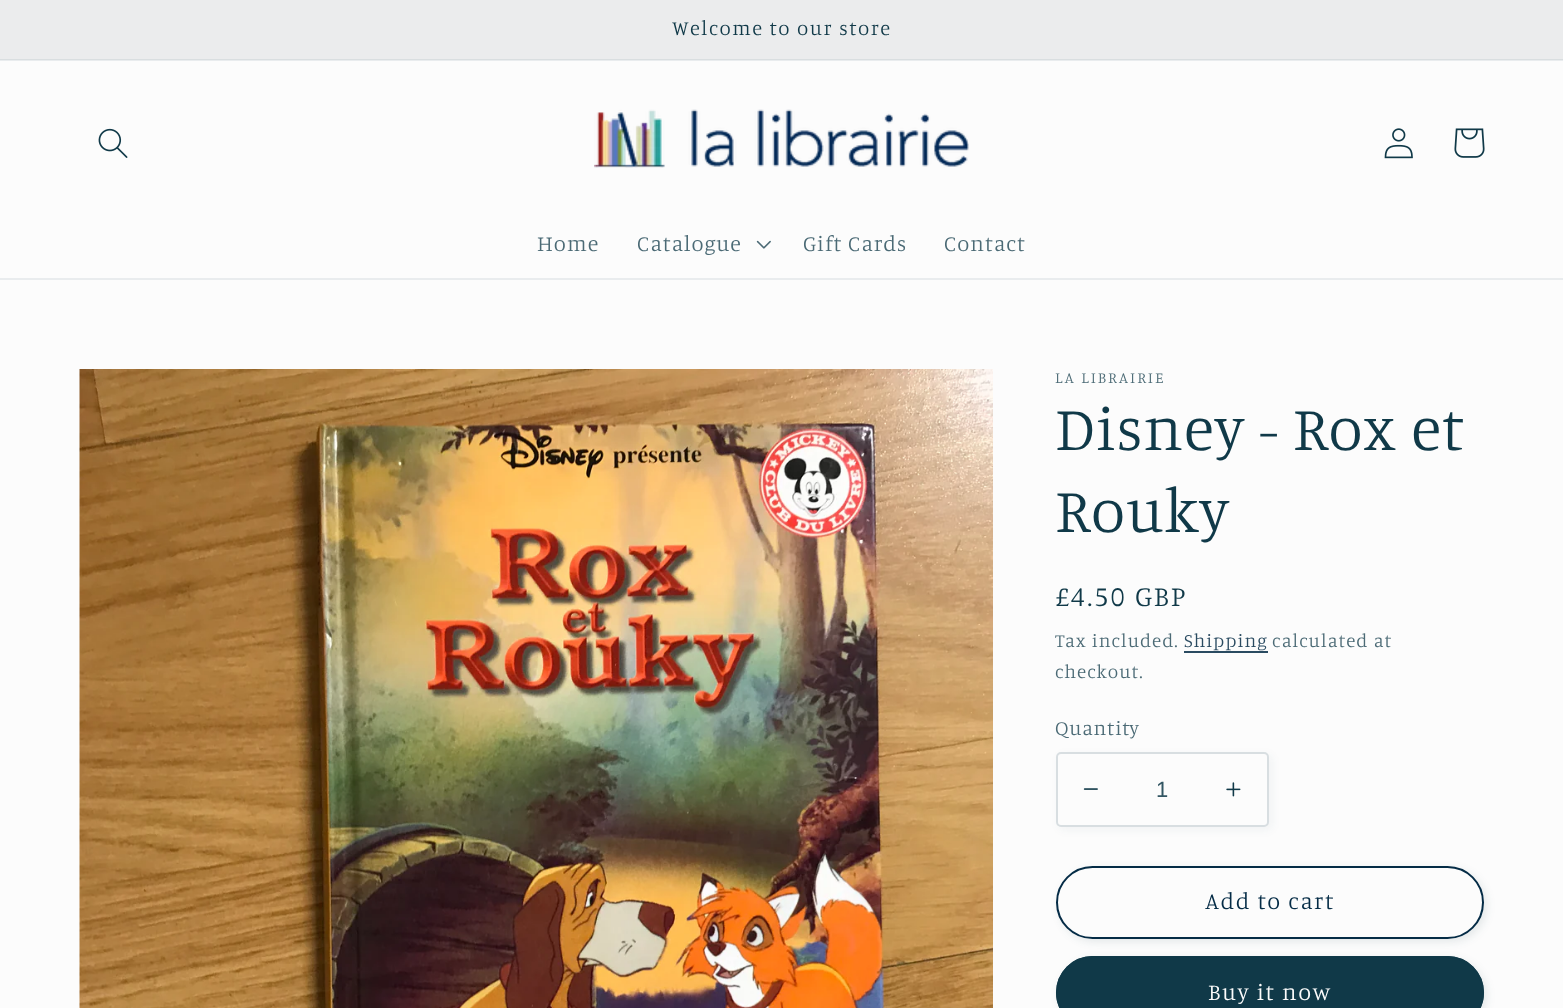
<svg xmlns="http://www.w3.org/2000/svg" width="1563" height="1008">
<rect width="100%" height="100%" fill="#fcfcfc"/>
<rect y="60" width="1563" height="1" fill="#e9ecee"/>
<rect width="1563" height="59" fill="#ebeced"/>
<rect y="59" width="1563" height="1" fill="#d9dee0"/>
<text x="672" y="35" style="font-family:Manuale;font-size:20.5px;font-weight:300;letter-spacing:1.6px;fill:#103948">Welcome to our store</text>
<rect y="278" width="1563" height="2" fill="#e9ecee"/>
<image x="98" y="128" width="30" height="30" href="media/1.png"/>
<image x="594" y="109" width="375" height="59" href="media/2.png"/>
<image x="1384" y="128" width="29" height="31" href="media/3.png"/>
<image x="1454" y="128" width="31" height="30" href="media/4.png"/>
<text x="537" y="251" style="font-family:Manuale;font-size:22px;font-weight:300;letter-spacing:1px;fill:#4b6a75">Home</text>
<text x="637" y="251" style="font-family:Manuale;font-size:22px;font-weight:300;letter-spacing:1px;fill:#4b6a75">Catalogue</text>
<image x="756" y="240" width="15" height="9" href="media/5.png"/>
<text x="803" y="251" style="font-family:Manuale;font-size:22px;font-weight:300;letter-spacing:1px;fill:#4b6a75">Gift Cards</text>
<text x="944" y="251" style="font-family:Manuale;font-size:22px;font-weight:300;letter-spacing:1px;fill:#4b6a75">Contact</text>
<image x="79" y="369" width="914" height="639" href="media/6.png"/>
<text x="1055" y="383" style="font-family:Manuale;font-size:15.75px;font-weight:300;letter-spacing:2px;fill:#4b6a75">LA LIBRAIRIE</text>
<text x="1055" y="450" style="font-family:Manuale;font-size:63px;font-weight:300;letter-spacing:1px;fill:#103948">Disney - Rox et</text>
<text x="1055" y="532" style="font-family:Manuale;font-size:63px;font-weight:300;letter-spacing:1px;fill:#103948">Rouky</text>
<text x="1055" y="606" style="font-family:Manuale;font-size:28.5px;font-weight:300;letter-spacing:2px;fill:#103948">£4.50 GBP</text>
<text x="1055" y="647" style="font-family:Manuale;font-size:19px;font-weight:300;letter-spacing:1.1px;fill:#4b6a75">Tax included.</text>
<text x="1184" y="647" style="font-family:Manuale;font-size:19px;font-weight:300;letter-spacing:1.1px;fill:#2a4b61">Shipping</text>
<rect x="1184" y="651" width="84" height="2" fill="#2a4b61"/>
<text x="1272" y="647" style="font-family:Manuale;font-size:19px;font-weight:300;letter-spacing:1.1px;fill:#4b6a75">calculated at</text>
<text x="1055" y="678" style="font-family:Manuale;font-size:19px;font-weight:300;letter-spacing:1.1px;fill:#4b6a75">checkout.</text>
<text x="1055" y="735" style="font-family:Manuale;font-size:20.5px;font-weight:300;letter-spacing:0.75px;fill:#4b6a75">Quantity</text>
<rect x="1059" y="755" width="213" height="75" rx="5" fill="#1039480d" filter="blur(4px)"/>
<rect x="1056" y="752" width="213" height="75" rx="5" fill="#fcfcfc"/>
<image x="1083" y="788" width="15" height="2" href="media/7.png"/>
<image x="1226" y="782" width="15" height="15" href="media/8.png"/>
<rect x="1057" y="753" width="211" height="73" rx="4" fill="none" stroke="#10394826" stroke-width="2"/>
<text x="1156" y="797" style="font-family:Liberation Sans;font-size:22px;fill:#335663">1</text>
<rect x="1059" y="869" width="428" height="73" rx="36.5" fill="#1039481a" filter="blur(4px)"/>
<rect x="1056" y="866" width="428" height="73" rx="36.5" fill="#fcfcfc"/>
<rect x="1057" y="867" width="426" height="71" rx="35.5" fill="none" stroke="#fcfcfc" stroke-width="2"/>
<rect x="1057" y="867" width="426" height="71" rx="35.5" fill="none" stroke="#052c46" stroke-width="2"/>
<text x="1205" y="909" style="font-family:Manuale;font-size:23.5px;font-weight:300;letter-spacing:1.6px;fill:#052c46">Add to cart</text>
<rect x="1059" y="959" width="428" height="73" rx="36.5" fill="#1039481a" filter="blur(4px)"/>
<rect x="1056" y="956" width="428" height="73" rx="36.5" fill="#103948"/>
<rect x="1057" y="957" width="426" height="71" rx="35.5" fill="none" stroke="#103948" stroke-width="2"/>
<text x="1208" y="1000" style="font-family:Manuale;font-size:23.5px;font-weight:300;letter-spacing:1.6px;fill:#fcfcfc">Buy it now</text>
</svg>
